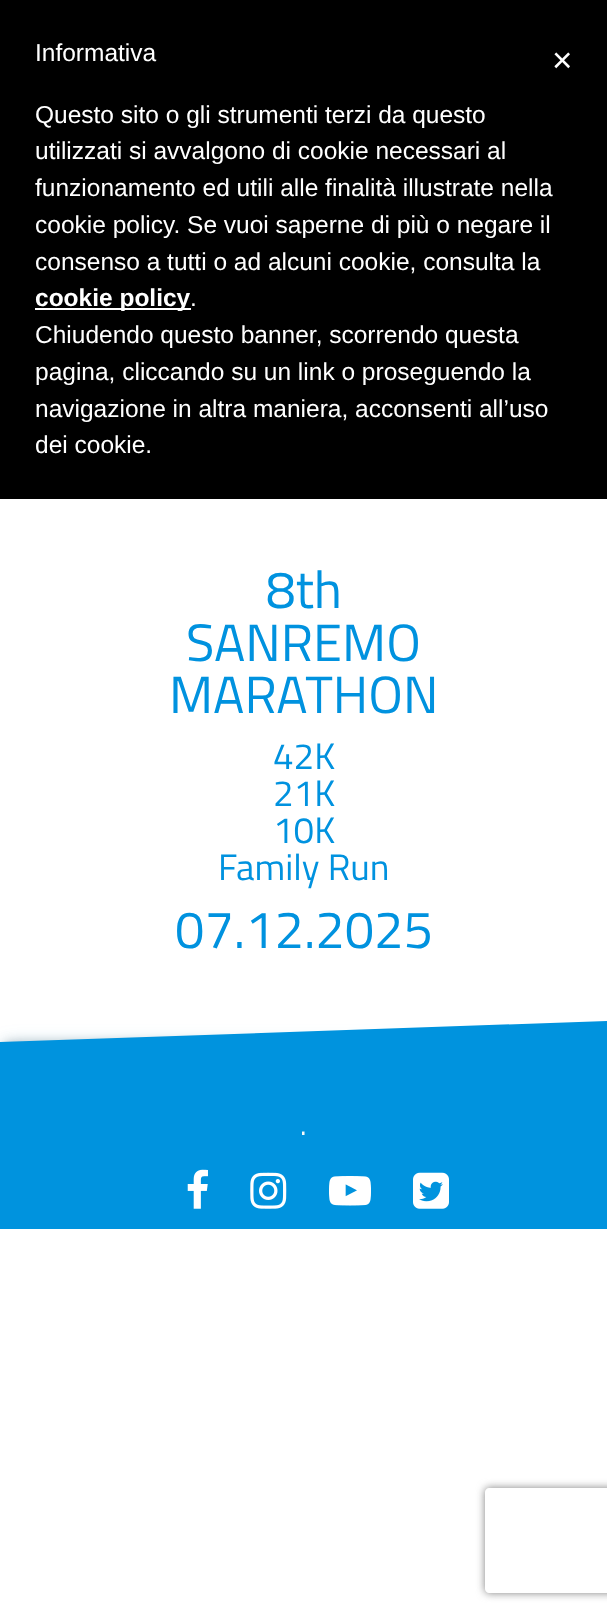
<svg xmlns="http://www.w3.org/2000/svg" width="607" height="1617">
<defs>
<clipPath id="clip1"><path d="M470 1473h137v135h-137zm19 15h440c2 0 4 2 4 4v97c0 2-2 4-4 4h-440c-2 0-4-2-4-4v-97c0-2 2-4 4-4z" clip-rule="evenodd"/></clipPath>
</defs>
<rect width="100%" height="100%" fill="#fff"/>
<rect width="607" height="499" fill="#000"/>
<text x="35" y="61" style="font-family:Liberation Sans;font-size:24.5px;fill:#fff">Informativa</text>
<text x="35" y="123" style="font-family:Liberation Sans;font-size:24.5px;fill:#fff">Questo sito o gli strumenti terzi da questo</text>
<text x="35" y="159" style="font-family:Liberation Sans;font-size:24.5px;fill:#fff">utilizzati si avvalgono di cookie necessari al</text>
<text x="35" y="196" style="font-family:Liberation Sans;font-size:24.5px;fill:#fff">funzionamento ed utili alle finalità illustrate nella</text>
<text x="35" y="233" style="font-family:Liberation Sans;font-size:24.5px;fill:#fff">cookie policy. Se vuoi saperne di più o negare il</text>
<text x="35" y="270" style="font-family:Liberation Sans;font-size:24.5px;fill:#fff">consenso a tutti o ad alcuni cookie, consulta la</text>
<rect x="35" y="308" width="156" height="2" fill="#fff"/>
<text x="35" y="306" style="font-family:Liberation Sans;font-size:24.5px;font-weight:bold;fill:#fff">cookie policy</text>
<text x="190" y="306" style="font-family:Liberation Sans;font-size:24.5px;fill:#fff">.</text>
<text x="35" y="343" style="font-family:Liberation Sans;font-size:24.5px;fill:#fff">Chiudendo questo banner, scorrendo questa</text>
<text x="35" y="380" style="font-family:Liberation Sans;font-size:24.5px;fill:#fff">pagina, cliccando su un link o proseguendo la</text>
<text x="35" y="417" style="font-family:Liberation Sans;font-size:24.5px;fill:#fff">navigazione in altra maniera, acconsenti all’uso</text>
<text x="35" y="453" style="font-family:Liberation Sans;font-size:24.5px;fill:#fff">dei cookie.</text>
<text x="552" y="72" style="font-family:Liberation Sans;font-size:35px;fill:#fff">×</text>
<text x="266" y="608" style="font-family:Titillium Web;font-size:52.5px;fill:#0092df">8th</text>
<text x="186" y="661" style="font-family:Titillium Web;font-size:52.5px;fill:#0092df">SANREMO</text>
<text x="169" y="713" style="font-family:Titillium Web;font-size:52.5px;fill:#0092df">MARATHON</text>
<text x="273" y="769" style="font-family:Titillium Web;font-size:36.75px;fill:#0092df">42K</text>
<text x="273" y="806" style="font-family:Titillium Web;font-size:36.75px;fill:#0092df">21K</text>
<text x="273" y="843" style="font-family:Titillium Web;font-size:36.75px;fill:#0092df">10K</text>
<text x="218" y="880" style="font-family:Titillium Web;font-size:36.75px;fill:#0092df">Family Run</text>
<text x="175" y="948" style="font-family:Titillium Web;font-size:52.5px;fill:#0092df">07.12.2025</text>
<rect x="5" y="1043" width="597" height="121" fill="#0000004d" filter="blur(6px)"/>
<rect x="4" y="1047" width="600" height="124" fill="#0093de40" filter="blur(10.5px)"/>
<path d="M0 1042l607-21v131l-607 22z" fill="#0093de"/>
<rect y="1152" width="607" height="77" fill="#0093de"/>
<text x="300" y="1135" style="font-family:Titillium Web;font-size:30px;fill:#f9f9f9">.</text>
<image x="187" y="1169" width="21" height="40" href="media/1.png"/>
<image x="250" y="1172" width="37" height="37" href="media/2.png"/>
<image x="329" y="1176" width="42" height="30" href="media/3.png"/>
<image x="413" y="1172" width="36" height="37" href="media/4.png"/>
<g clip-path="url(#clip1)">
<rect x="485" y="1488" width="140" height="105" rx="4" fill="#808080" filter="blur(4.5px)"/>
</g>
</svg>
